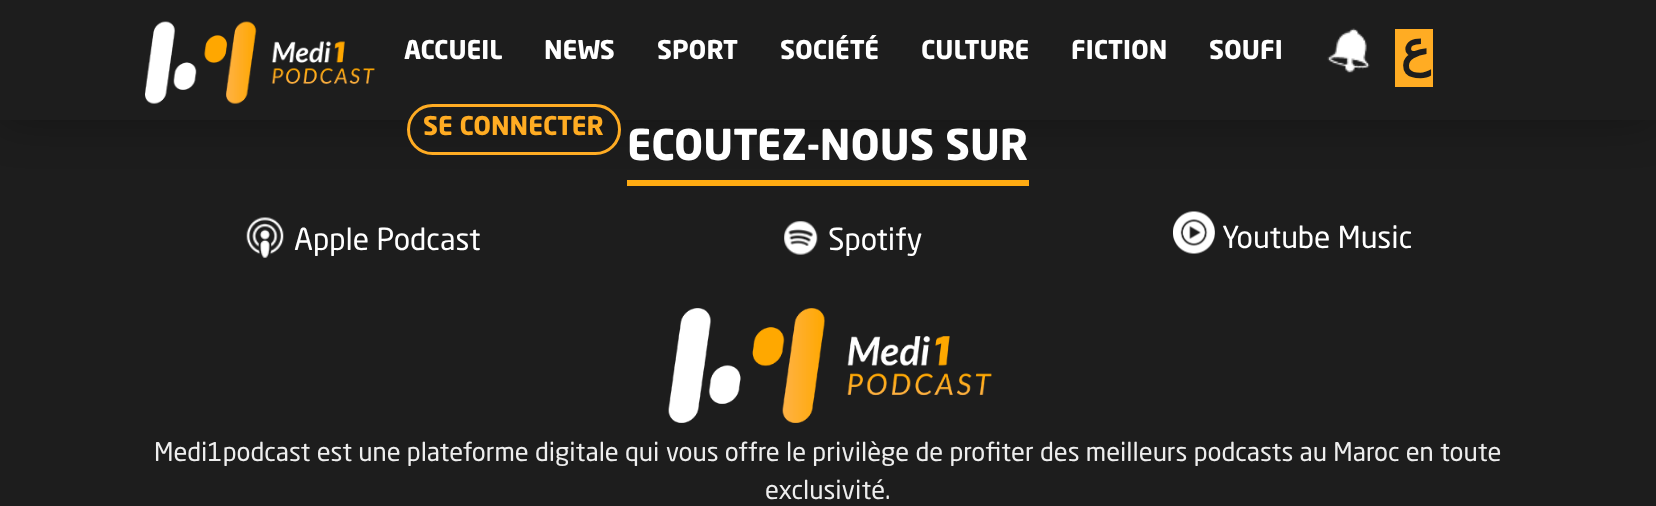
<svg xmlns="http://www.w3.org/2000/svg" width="1656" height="506">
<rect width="100%" height="100%" fill="#1d1d1d"/>
<rect x="627" y="180" width="402" height="6" fill="#ffab12"/>
<rect width="1656" height="120" fill="#0001024d" filter="blur(22.5px)"/>
<rect width="1656" height="120" fill="#1d1d1d"/>
<image x="145" y="21" width="230" height="83" href="media/1.png"/>
<text x="404" y="59" style="font-family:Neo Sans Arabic;font-size:25.5px;font-weight:bold;fill:#fff">ACCUEIL</text>
<text x="544" y="59" style="font-family:Neo Sans Arabic;font-size:25.5px;font-weight:bold;fill:#fff">NEWS</text>
<text x="657" y="59" style="font-family:Neo Sans Arabic;font-size:25.5px;font-weight:bold;fill:#fff">SPORT</text>
<text x="780" y="59" style="font-family:Neo Sans Arabic;font-size:25.5px;font-weight:bold;fill:#fff">SOCIÉTÉ</text>
<text x="921" y="59" style="font-family:Neo Sans Arabic;font-size:25.5px;font-weight:bold;fill:#fff">CULTURE</text>
<text x="1071" y="59" style="font-family:Neo Sans Arabic;font-size:25.5px;font-weight:bold;fill:#fff">FICTION</text>
<text x="1209" y="59" style="font-family:Neo Sans Arabic;font-size:25.5px;font-weight:bold;fill:#fff">SOUFI</text>
<image x="1327" y="28" width="43" height="45" href="media/2.png"/>
<rect x="1395" y="29" width="38" height="58" fill="#ffac23"/>
<text x="1430" y="66" style="font-family:DejaVu Sans;font-size:50px;font-weight:bold;direction:rtl;fill:#1d1d1d">ع</text>
<rect x="408.5" y="105.5" width="211" height="48" rx="24" fill="none" stroke="#ffac23" stroke-width="3"/>
<text x="423" y="135" style="font-family:Neo Sans Arabic;font-size:25.5px;font-weight:bold;fill:#ffac23">SE CONNECTER</text>
<text x="627" y="160" style="font-family:Neo Sans Arabic;font-size:42px;font-weight:bold;fill:#fff">ECOUTEZ-NOUS SUR</text>
<image x="246" y="217" width="38" height="41" href="media/3.png"/>
<text x="294" y="250" style="font-family:Neo Sans Arabic;font-size:30px;fill:#fff">Apple Podcast</text>
<image x="784" y="221" width="34" height="34" href="media/4.png"/>
<text x="828" y="250" style="font-family:Neo Sans Arabic;font-size:30px;fill:#fff">Spotify</text>
<image x="1173" y="211" width="42" height="43" href="media/5.png"/>
<text x="1222" y="248" style="font-family:Neo Sans Arabic;font-size:30px;fill:#fff">Youtube Music</text>
<image x="668" y="308" width="324" height="115" href="media/6.png"/>
<text x="154" y="461" style="font-family:Neo Sans Arabic;font-size:25.5px;fill:#eee">Medi1podcast est une plateforme digitale qui vous offre le privilège de profiter des meilleurs podcasts au Maroc en toute</text>
<text x="765" y="499" style="font-family:Neo Sans Arabic;font-size:25.5px;fill:#eee">exclusivité.</text>
</svg>
